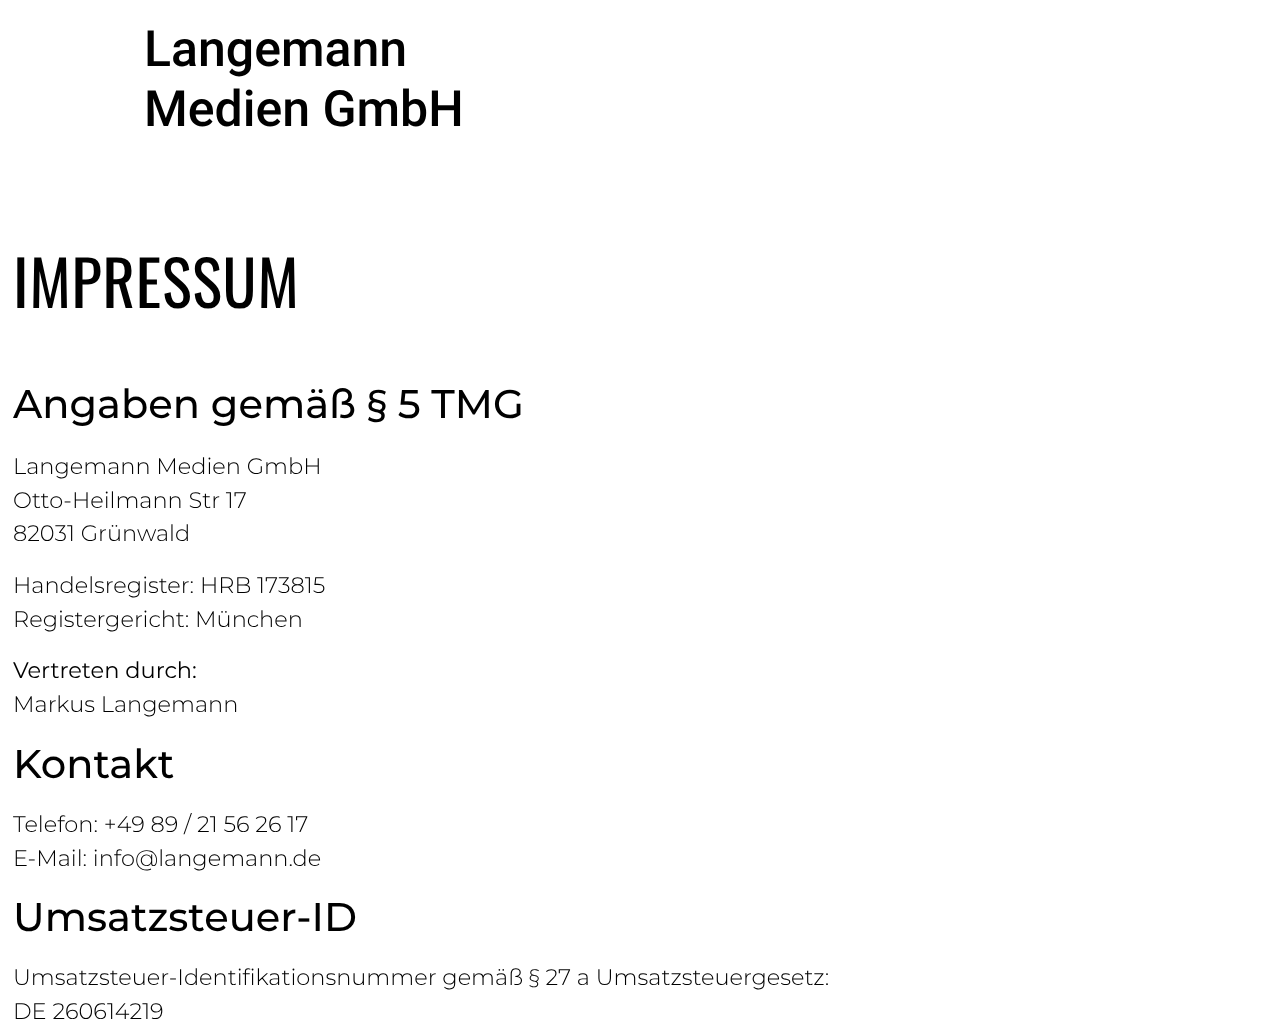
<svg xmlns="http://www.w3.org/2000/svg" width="1287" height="1027">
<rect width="100%" height="100%" fill="#fff"/>
<text x="144" y="66" style="font-family:Roboto;font-size:50px;font-weight:500;fill:#000">Langemann</text>
<text x="144" y="126" style="font-family:Roboto;font-size:50px;font-weight:500;fill:#000">Medien GmbH</text>
<text x="13" y="308" style="font-family:Oswald;font-size:62.5px;letter-spacing:0.9px;fill:#000">IMPRESSUM</text>
<text x="13" y="418" style="font-family:Montserrat;font-size:40px;font-weight:500;fill:#000">Angaben gemäß § 5 TMG</text>
<text x="13" y="474" style="font-family:Montserrat;font-size:22.5px;font-weight:300;fill:#000">Langemann Medien GmbH</text>
<text x="13" y="508" style="font-family:Montserrat;font-size:22.5px;font-weight:300;fill:#000">Otto-Heilmann Str 17</text>
<text x="13" y="541" style="font-family:Montserrat;font-size:22.5px;font-weight:300;fill:#000">82031 Grünwald</text>
<text x="13" y="593" style="font-family:Montserrat;font-size:22.5px;font-weight:300;fill:#000">Handelsregister: HRB 173815</text>
<text x="13" y="627" style="font-family:Montserrat;font-size:22.5px;font-weight:300;fill:#000">Registergericht: München</text>
<text x="13" y="678" style="font-family:Montserrat;font-size:22.5px;fill:#000">Vertreten durch:</text>
<text x="13" y="712" style="font-family:Montserrat;font-size:22.5px;font-weight:300;fill:#000">Markus Langemann</text>
<text x="13" y="778" style="font-family:Montserrat;font-size:40px;font-weight:500;fill:#000">Kontakt</text>
<text x="13" y="832" style="font-family:Montserrat;font-size:22.5px;font-weight:300;fill:#000">Telefon: +49 89 / 21 56 26 17</text>
<text x="13" y="866" style="font-family:Montserrat;font-size:22.5px;font-weight:300;fill:#000">E-Mail: info@langemann.de</text>
<text x="13" y="931" style="font-family:Montserrat;font-size:40px;font-weight:500;fill:#000">Umsatzsteuer-ID</text>
<text x="13" y="985" style="font-family:Montserrat;font-size:22.5px;font-weight:300;fill:#000">Umsatzsteuer-Identifikationsnummer gemäß § 27 a Umsatzsteuergesetz:</text>
<text x="13" y="1019" style="font-family:Montserrat;font-size:22.5px;font-weight:300;fill:#000">DE 260614219</text>
</svg>
